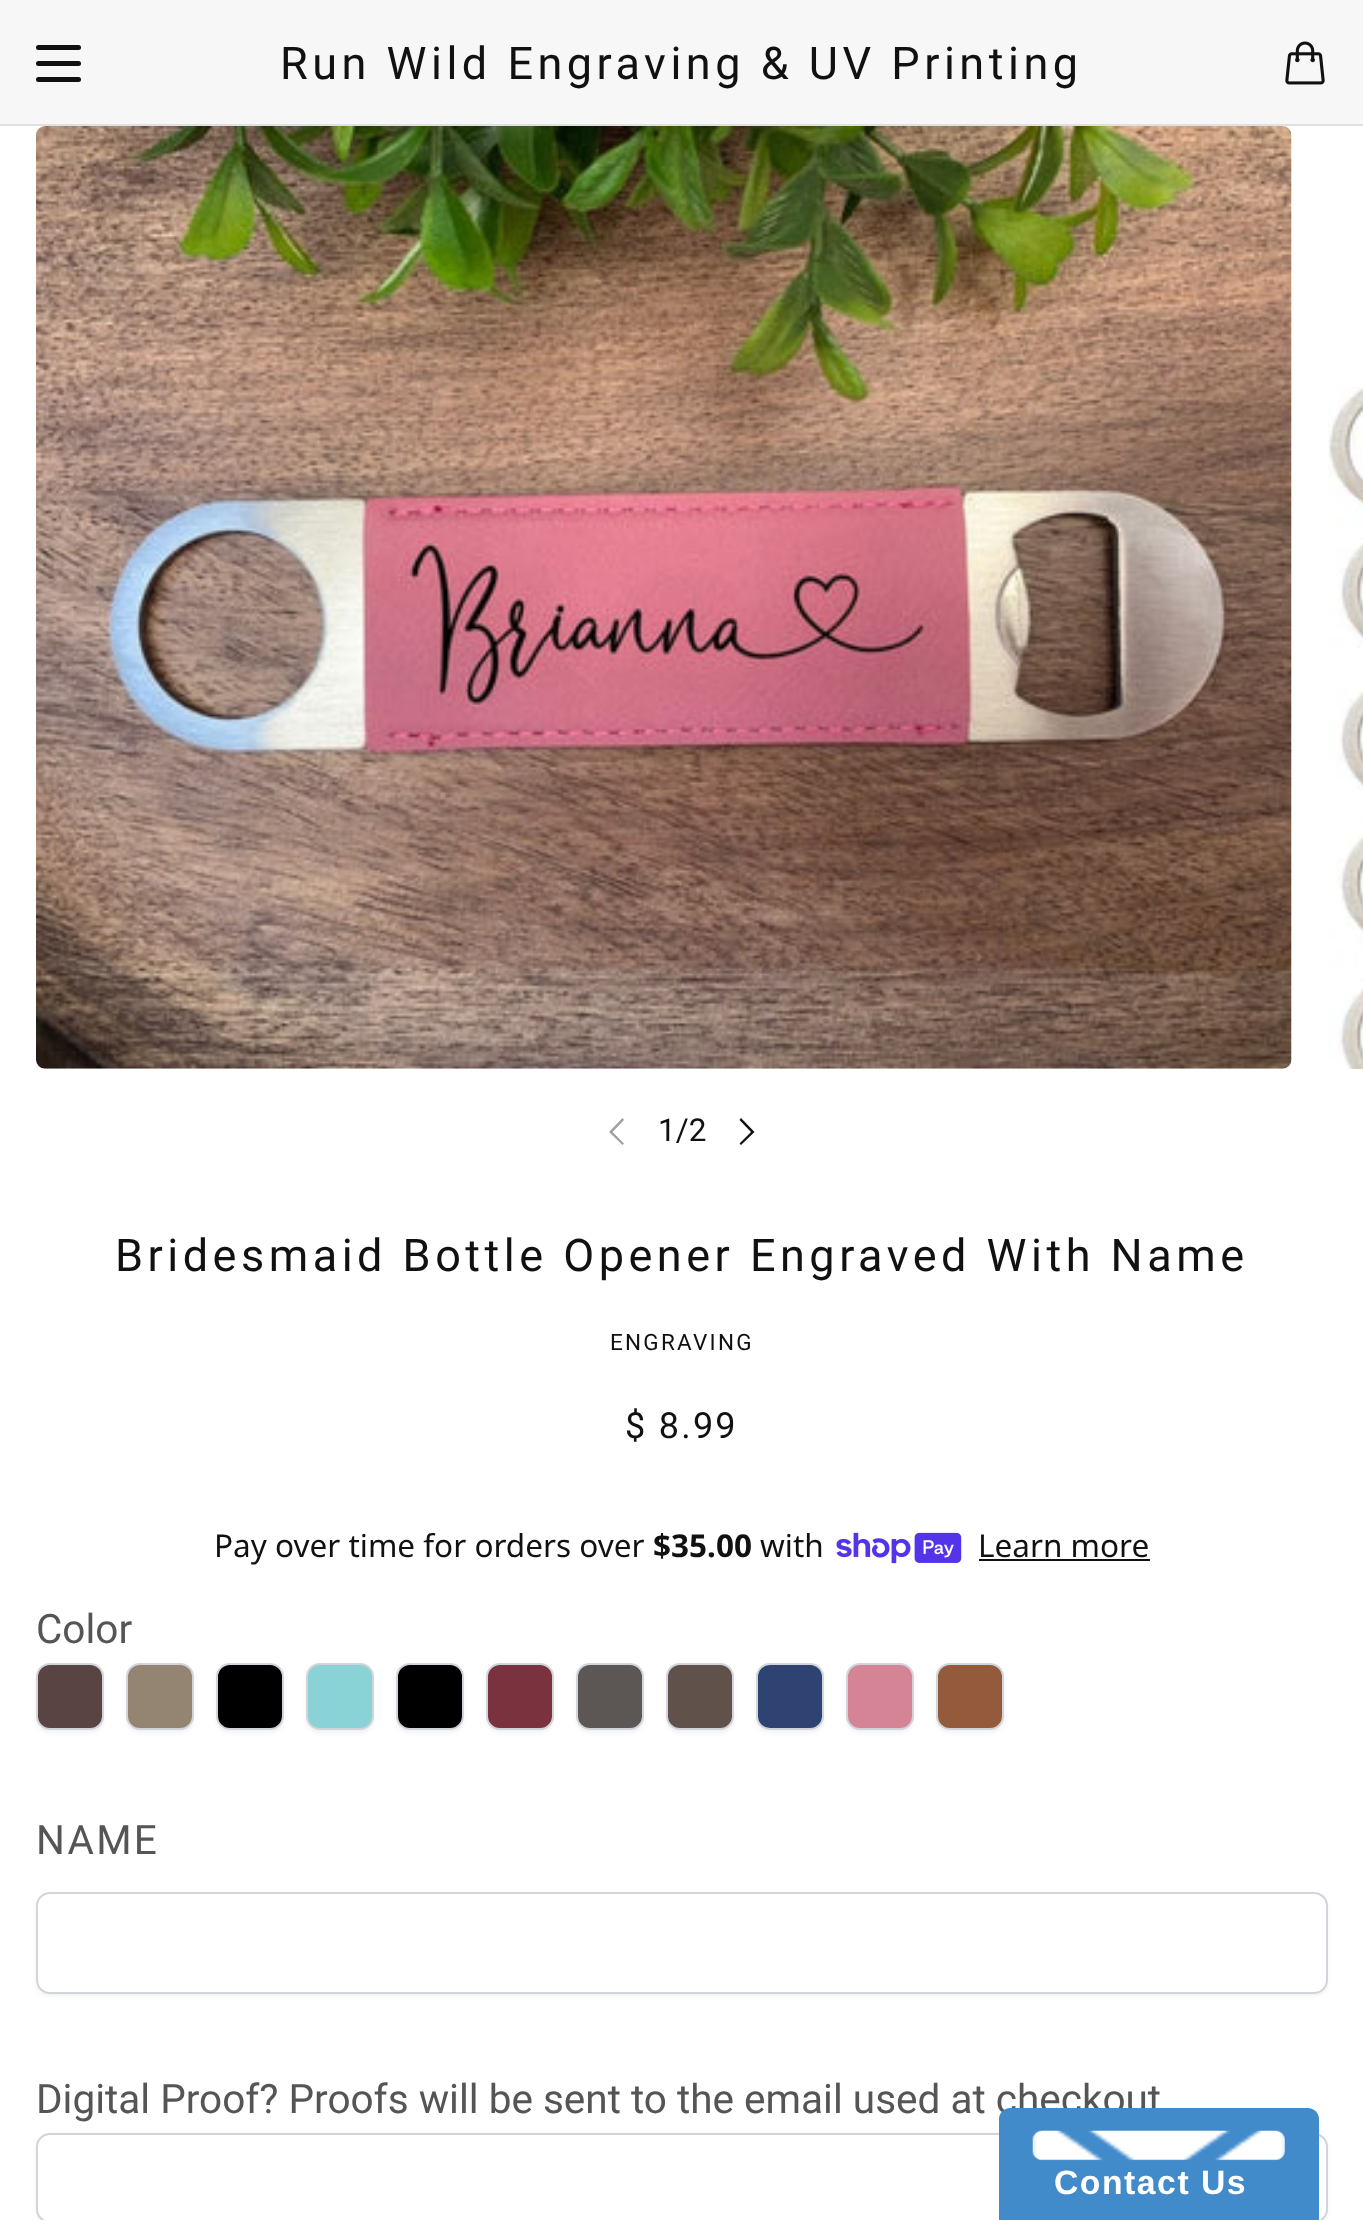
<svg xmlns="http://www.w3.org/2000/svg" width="1363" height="2220">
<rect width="100%" height="100%" fill="#fff"/>
<rect width="1363" height="124" fill="#f7f7f7"/>
<rect x="36" y="45" width="45" height="5" rx="2.5" fill="#111"/>
<rect x="36" y="61" width="45" height="5" rx="2.5" fill="#111"/>
<rect x="36" y="77" width="45" height="5" rx="2.5" fill="#111"/>
<text x="280" y="79" style="font-family:Roboto;font-size:45px;letter-spacing:4.5px;fill:#111">Run Wild Engraving &amp; UV Printing</text>
<image x="1285" y="41" width="40" height="44" href="media/1.png"/>
<rect y="124" width="1363" height="2" fill="#e0e0e0"/>
<image x="36" y="126" width="1256" height="943" href="media/2.png"/>
<image x="1328" y="386" width="35" height="683" href="media/3.png"/>
<path d="M612.5 1132l11.5 11.5l-1.5 1.5l-13.5-13l13.5-14l1.5 2z" fill="#a0a0a0"/>
<text x="658" y="1141" style="font-family:Roboto;font-size:31.5px;fill:#111">1/2</text>
<path d="M751 1132l-11.5-12l1.5-2l13.5 14l-13.5 13l-1.5-1.5z" fill="#111"/>
<text x="115" y="1271" style="font-family:Roboto;font-size:45px;letter-spacing:4.5px;fill:#111">Bridesmaid Bottle Opener Engraved With Name</text>
<text x="610" y="1350" style="font-family:Roboto;font-size:22.5px;letter-spacing:2.25px;fill:#111">ENGRAVING</text>
<text x="625" y="1438" style="font-family:Roboto;font-size:36px;letter-spacing:2.25px;fill:#111">$ 8.99</text>
<text x="214" y="1557" style="font-family:Noto Sans;font-size:31.5px;fill:#111">Pay over time for orders over</text>
<text x="653" y="1557" style="font-family:Noto Sans;font-size:31.5px;font-weight:bold;fill:#111">$35.00</text>
<text x="760" y="1557" style="font-family:Noto Sans;font-size:31.5px;fill:#111">with</text>
<image x="836" y="1532" width="126" height="32" href="media/4.png"/>
<text x="978" y="1557" style="font-family:Noto Sans;font-size:31.5px;fill:#111">Learn more</text>
<rect x="979" y="1559" width="171" height="2" fill="#111"/>
<text x="36" y="1643" style="font-family:Roboto;font-size:40.5px;fill:#555">Color</text>
<rect x="36" y="1665" width="68" height="68" rx="14" fill="#0000000d" filter="blur(2px)"/>
<rect x="37" y="1664" width="66" height="65" rx="13" fill="#594443" stroke="#d1d5db" stroke-width="2"/>
<rect x="126" y="1665" width="68" height="68" rx="14" fill="#0000000d" filter="blur(2px)"/>
<rect x="127" y="1664" width="66" height="65" rx="13" fill="#948572" stroke="#d1d5db" stroke-width="2"/>
<rect x="216" y="1665" width="68" height="68" rx="14" fill="#0000000d" filter="blur(2px)"/>
<rect x="217" y="1664" width="66" height="65" rx="13" fill="#000" stroke="#d1d5db" stroke-width="2"/>
<rect x="306" y="1665" width="68" height="68" rx="14" fill="#0000000d" filter="blur(2px)"/>
<rect x="307" y="1664" width="66" height="65" rx="13" fill="#89d3d6" stroke="#d1d5db" stroke-width="2"/>
<rect x="396" y="1665" width="68" height="68" rx="14" fill="#0000000d" filter="blur(2px)"/>
<rect x="397" y="1664" width="66" height="65" rx="13" fill="#000" stroke="#d1d5db" stroke-width="2"/>
<rect x="486" y="1665" width="68" height="68" rx="14" fill="#0000000d" filter="blur(2px)"/>
<rect x="487" y="1664" width="66" height="65" rx="13" fill="#7a323e" stroke="#d1d5db" stroke-width="2"/>
<rect x="576" y="1665" width="68" height="68" rx="14" fill="#0000000d" filter="blur(2px)"/>
<rect x="577" y="1664" width="66" height="65" rx="13" fill="#5c5754" stroke="#d1d5db" stroke-width="2"/>
<rect x="666" y="1665" width="68" height="68" rx="14" fill="#0000000d" filter="blur(2px)"/>
<rect x="667" y="1664" width="66" height="65" rx="13" fill="#60514a" stroke="#d1d5db" stroke-width="2"/>
<rect x="756" y="1665" width="68" height="68" rx="14" fill="#0000000d" filter="blur(2px)"/>
<rect x="757" y="1664" width="66" height="65" rx="13" fill="#2e4372" stroke="#d1d5db" stroke-width="2"/>
<rect x="846" y="1665" width="68" height="68" rx="14" fill="#0000000d" filter="blur(2px)"/>
<rect x="847" y="1664" width="66" height="65" rx="13" fill="#d58495" stroke="#d1d5db" stroke-width="2"/>
<rect x="936" y="1665" width="68" height="68" rx="14" fill="#0000000d" filter="blur(2px)"/>
<rect x="937" y="1664" width="66" height="65" rx="13" fill="#935a3c" stroke="#d1d5db" stroke-width="2"/>
<text x="36" y="1854" style="font-family:Roboto;font-size:40.5px;letter-spacing:2.25px;fill:#555">NAME</text>
<rect x="36" y="1895" width="1292" height="101" rx="14" fill="#0000000d" filter="blur(2px)"/>
<rect x="37" y="1893" width="1290" height="100" rx="13" fill="#fff" stroke="#d1d5db" stroke-width="2"/>
<text x="36" y="2113" style="font-family:Roboto;font-size:40.5px;fill:#555">Digital Proof? Proofs will be sent to the email used at checkout</text>
<rect x="36" y="2135" width="1292" height="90" rx="14" fill="#0000000d" filter="blur(2px)"/>
<rect x="37" y="2134" width="1290" height="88" rx="13" fill="#fff" stroke="#d1d5db" stroke-width="2"/>
<path d="M1010 2108h298c6 0 11 5 11 11v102h-320v-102c0-6 5-11 11-11z" fill="#428bca"/>
<image x="1032" y="2130" width="253" height="31" href="media/5.png"/>
<text x="1054" y="2194" style="font-family:Liberation Sans;font-size:33.75px;font-weight:bold;letter-spacing:1.5px;fill:#fff">Contact Us</text>
</svg>
